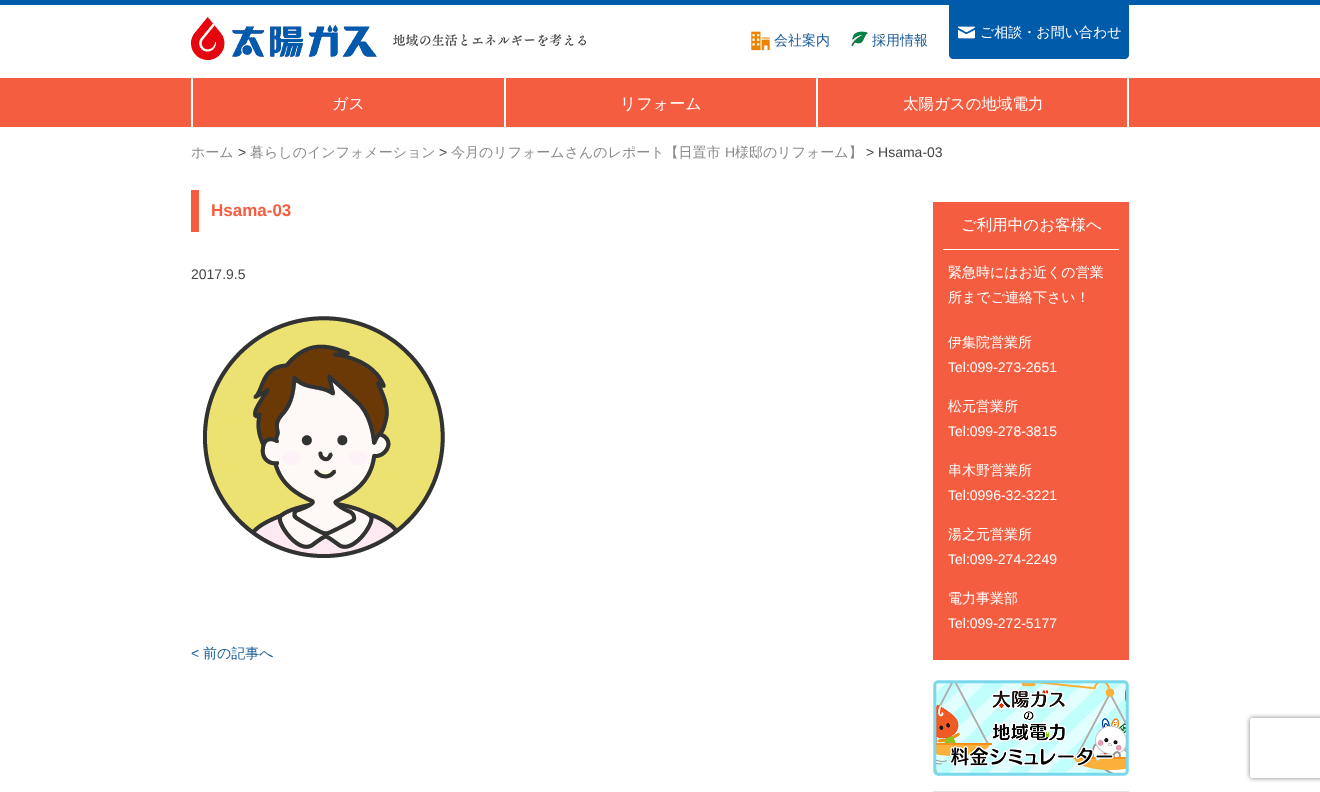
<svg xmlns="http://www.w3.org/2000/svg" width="1320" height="792">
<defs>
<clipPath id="clip1"><path d="M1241 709h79v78h-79zm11 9h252c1 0 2 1 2 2v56c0 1-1 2-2 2h-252c-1 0-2-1-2-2v-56c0-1 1-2 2-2z" clip-rule="evenodd"/></clipPath>
</defs>
<rect width="100%" height="100%" fill="#fff"/>
<rect width="1320" height="5" fill="#005bab"/>
<image x="191" y="17" width="186" height="43" href="media/1.png"/>
<image x="393" y="34" width="193" height="12" href="media/2.png"/>
<image x="751" y="31" width="19" height="20" href="media/3.png"/>
<text x="774" y="45" style="font-family:WenQuanYi Zen Hei;font-size:14px;font-weight:500;fill:#185c98">会社案内</text>
<image x="851" y="31" width="17" height="16" href="media/4.png"/>
<text x="872" y="45" style="font-family:WenQuanYi Zen Hei;font-size:14px;font-weight:500;fill:#185c98">採用情報</text>
<path d="M949 5h180v50c0 2-2 4-4 4h-172c-2 0-4-2-4-4z" fill="#005bab"/>
<image x="957" y="26" width="19" height="13" href="media/5.png"/>
<text x="980" y="37" style="font-family:WenQuanYi Zen Hei;font-size:14px;font-weight:500;fill:#fff">ご相談・お問い合わせ</text>
<rect x="191" y="127" width="938" height="1" fill="#f0f0f0"/>
<rect y="78" width="1320" height="49" fill="#f45d40"/>
<rect x="191" y="78" width="2" height="49" fill="#fff"/>
<text x="332" y="109" style="font-family:WenQuanYi Zen Hei;font-size:16px;font-weight:500;fill:#fff">ガス</text>
<rect x="504" y="78" width="2" height="49" fill="#fff"/>
<text x="620" y="109" style="font-family:WenQuanYi Zen Hei;font-size:16px;font-weight:500;fill:#fff">リフォーム</text>
<rect x="1127" y="78" width="2" height="49" fill="#fff"/>
<rect x="816" y="78" width="2" height="49" fill="#fff"/>
<text x="903" y="109" style="font-family:WenQuanYi Zen Hei;font-size:15.5px;font-weight:500;fill:#fff">太陽ガスの地域電力</text>
<text x="191" y="157" style="font-family:WenQuanYi Zen Hei;font-size:14px;font-weight:500;fill:#8a8a8a">ホーム</text>
<text x="238" y="157" style="font-family:Liberation Sans;font-size:14px;fill:#444">&gt;</text>
<text x="250" y="157" style="font-family:WenQuanYi Zen Hei;font-size:14px;font-weight:500;fill:#8a8a8a">暮らしのインフォメーション</text>
<text x="439" y="157" style="font-family:Liberation Sans;font-size:14px;fill:#444">&gt;</text>
<text x="451" y="157" style="font-family:WenQuanYi Zen Hei;font-size:14px;font-weight:500;fill:#8a8a8a">今月のリフォームさんのレポート【日置市</text>
<text x="725" y="157" style="font-family:Liberation Sans;font-size:14px;fill:#8a8a8a">H</text>
<text x="735" y="157" style="font-family:WenQuanYi Zen Hei;font-size:14px;font-weight:500;fill:#8a8a8a">様邸のリフォーム】</text>
<text x="866" y="157" style="font-family:Liberation Sans;font-size:14px;fill:#444">&gt; Hsama-03</text>
<rect x="191" y="190" width="8" height="42" fill="#f45d40"/>
<text x="211" y="216" style="font-family:Liberation Sans;font-size:17px;font-weight:bold;fill:#f45d40">Hsama-03</text>
<text x="191" y="279" style="font-family:Liberation Sans;font-size:14px;fill:#444">2017.9.5</text>
<image x="203" y="316" width="242" height="242" href="media/6.png"/>
<text x="191" y="658" style="font-family:Liberation Sans;font-size:14px;fill:#185c98">&lt;</text>
<text x="203" y="658" style="font-family:WenQuanYi Zen Hei;font-size:14px;font-weight:500;fill:#185c98">前の記事へ</text>
<rect x="933" y="202" width="196" height="458" fill="#f45d40"/>
<rect x="943" y="249" width="176" height="1" fill="#fff"/>
<text x="961" y="230" style="font-family:WenQuanYi Zen Hei;font-size:15.5px;font-weight:500;fill:#fff">ご利用中のお客様へ</text>
<text x="948" y="277" style="font-family:WenQuanYi Zen Hei;font-size:14px;font-weight:500;fill:#fff">緊急時にはお近くの営業</text>
<text x="948" y="302" style="font-family:WenQuanYi Zen Hei;font-size:14px;font-weight:500;fill:#fff">所までご連絡下さい！</text>
<text x="948" y="347" style="font-family:WenQuanYi Zen Hei;font-size:14px;font-weight:500;fill:#fff">伊集院営業所</text>
<text x="948" y="372" style="font-family:Liberation Sans;font-size:14px;fill:#fff">Tel:099-273-2651</text>
<text x="948" y="411" style="font-family:WenQuanYi Zen Hei;font-size:14px;font-weight:500;fill:#fff">松元営業所</text>
<text x="948" y="436" style="font-family:Liberation Sans;font-size:14px;fill:#fff">Tel:099-278-3815</text>
<text x="948" y="475" style="font-family:WenQuanYi Zen Hei;font-size:14px;font-weight:500;fill:#fff">串木野営業所</text>
<text x="948" y="500" style="font-family:Liberation Sans;font-size:14px;fill:#fff">Tel:0996-32-3221</text>
<text x="948" y="539" style="font-family:WenQuanYi Zen Hei;font-size:14px;font-weight:500;fill:#fff">湯之元営業所</text>
<text x="948" y="564" style="font-family:Liberation Sans;font-size:14px;fill:#fff">Tel:099-274-2249</text>
<text x="948" y="603" style="font-family:WenQuanYi Zen Hei;font-size:14px;font-weight:500;fill:#fff">電力事業部</text>
<text x="948" y="628" style="font-family:Liberation Sans;font-size:14px;fill:#fff">Tel:099-272-5177</text>
<image x="933" y="680" width="196" height="96" href="media/7.png"/>
<image x="933" y="791" width="196" height="1" href="media/8.png"/>
<g clip-path="url(#clip1)">
<rect x="1250" y="718" width="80" height="60" rx="2" fill="#808080" filter="blur(2.5px)"/>
</g>
</svg>
